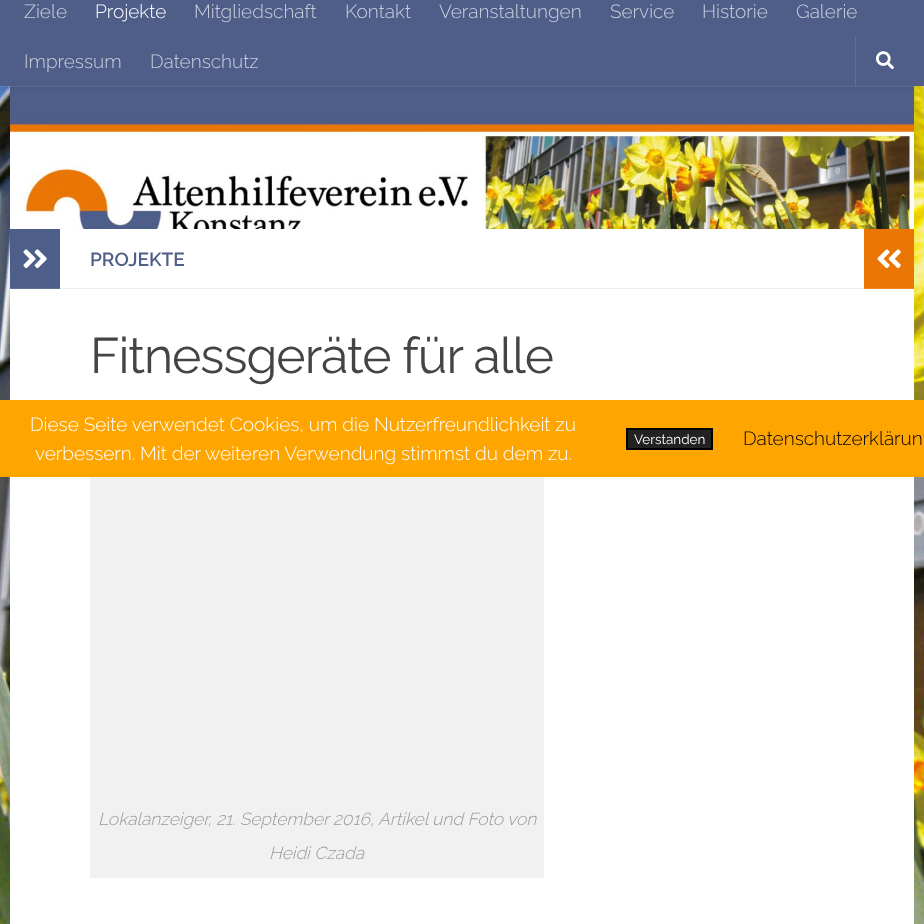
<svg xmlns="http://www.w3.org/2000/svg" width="924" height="924">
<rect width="100%" height="100%" fill="#fff"/>
<image x="0" y="86" width="924" height="838" href="media/1.png"/>
<image x="10" y="86" width="904" height="143" href="media/3.png"/>
<rect y="86" width="924" height="1" fill="#ffffff26"/>
<rect y="-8" width="924" height="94" fill="#00000033" filter="blur(2.5px)"/>
<rect width="924" height="86" fill="#4e5e89"/>
<text x="24" y="18" style="font-family:Raleway;font-size:19.05px;font-weight:300;fill:#cacfdc">Ziele</text>
<text x="95" y="18" style="font-family:Raleway;font-size:19.05px;font-weight:300;fill:#fff">Projekte</text>
<text x="194" y="18" style="font-family:Raleway;font-size:19.05px;font-weight:300;fill:#cacfdc">Mitgliedschaft</text>
<text x="345" y="18" style="font-family:Raleway;font-size:19.05px;font-weight:300;fill:#cacfdc">Kontakt</text>
<text x="439" y="18" style="font-family:Raleway;font-size:19.05px;font-weight:300;fill:#cacfdc">Veranstaltungen</text>
<text x="610" y="18" style="font-family:Raleway;font-size:19.05px;font-weight:300;fill:#cacfdc">Service</text>
<text x="702" y="18" style="font-family:Raleway;font-size:19.05px;font-weight:300;fill:#cacfdc">Historie</text>
<text x="796" y="18" style="font-family:Raleway;font-size:19.05px;font-weight:300;fill:#cacfdc">Galerie</text>
<text x="24" y="68" style="font-family:Raleway;font-size:19.05px;font-weight:300;fill:#cacfdc">Impressum</text>
<text x="150" y="68" style="font-family:Raleway;font-size:19.05px;font-weight:300;fill:#cacfdc">Datenschutz</text>
<rect x="855" y="36" width="1" height="50" fill="#606e95"/>
<image x="876" y="51" width="18" height="19" href="media/2.png"/>
<rect x="10" y="229" width="904" height="695" fill="#fff"/>
<rect x="10" y="229" width="50" height="59" fill="#4d5e89"/>
<rect x="10" y="288" width="50" height="1" fill="#5f6e95"/>
<image x="23" y="249" width="24" height="20" href="media/4.png"/>
<rect x="60" y="288" width="804" height="1" fill="#eee"/>
<text x="90" y="266" style="font-family:Raleway;font-size:19.05px;font-weight:600;fill:#4f5e89">PROJEKTE</text>
<text x="90" y="373" style="font-family:Raleway;font-size:49.9px;letter-spacing:-1px;fill:#444">Fitnessgeräte für alle</text>
<rect x="90" y="477" width="454" height="401" fill="#f1f1f1"/>
<text x="98" y="825" style="font-family:Raleway;font-size:17.4px;font-weight:300;font-style:italic;fill:#999">Lokalanzeiger, 21. September 2016, Artikel und Foto von</text>
<text x="269" y="859" style="font-family:Raleway;font-size:17.4px;font-weight:300;font-style:italic;fill:#999">Heidi Czada</text>
<rect x="864" y="229" width="50" height="59" fill="#ea7705"/>
<rect x="864" y="288" width="50" height="1" fill="#ec851e"/>
<image x="877" y="249" width="24" height="20" href="media/5.png"/>
<rect y="400" width="924" height="77" fill="#ffa500"/>
<text x="30" y="431" style="font-family:Raleway;font-size:19.05px;font-weight:300;fill:#fff">Diese Seite verwendet Cookies, um die Nutzerfreundlichkeit zu</text>
<text x="35" y="460" style="font-family:Raleway;font-size:19.05px;font-weight:300;fill:#fff">verbessern. Mit der weiteren Verwendung stimmst du dem zu.</text>
<rect x="627" y="429" width="85" height="20" fill="#222" stroke="#000" stroke-width="2"/>
<text x="634" y="444" style="font-family:Raleway;font-size:13.5px;fill:#fff">Verstanden</text>
<text x="743" y="445" style="font-family:Raleway;font-size:19.05px;font-weight:300;fill:#000">Datenschutzerklärun</text>
</svg>
